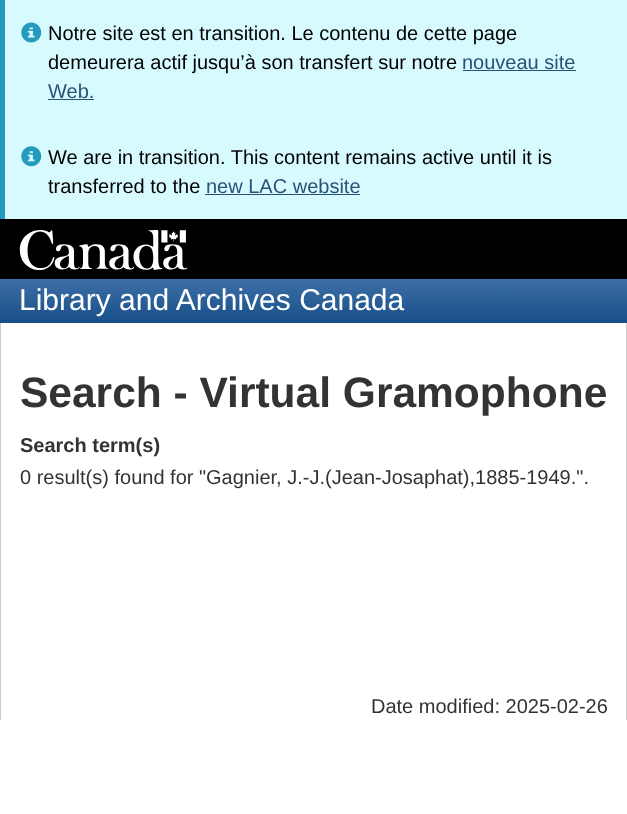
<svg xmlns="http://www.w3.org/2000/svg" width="627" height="814">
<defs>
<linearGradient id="g1" gradientUnits="userSpaceOnUse" x1="314" y1="219" x2="314" y2="323"><stop offset="0" stop-color="#4474ad"/><stop offset="0.5" stop-color="#4474ad"/><stop offset="1" stop-color="#174f88"/></linearGradient>
</defs>
<rect width="100%" height="100%" fill="#fff"/>
<rect x="5" width="622" height="219" fill="#d7faff"/>
<rect width="5" height="219" fill="#269abc"/>
<image x="21" y="22" width="21" height="21" href="media/1.png"/>
<text x="48" y="40" style="font-family:Liberation Sans;font-size:20px;fill:#000">Notre site est en transition. Le contenu de cette page</text>
<text x="48" y="69" style="font-family:Liberation Sans;font-size:20px;fill:#000">demeurera actif jusqu’à son transfert sur notre</text>
<text x="462" y="69" style="font-family:Liberation Sans;font-size:20px;fill:#295376">nouveau site</text>
<rect x="463" y="70" width="113" height="1" fill="#295376"/>
<text x="48" y="98" style="font-family:Liberation Sans;font-size:20px;fill:#295376">Web.</text>
<rect x="48" y="99" width="46" height="1" fill="#295376"/>
<image x="21" y="146" width="21" height="21" href="media/2.png"/>
<text x="48" y="164" style="font-family:Liberation Sans;font-size:20px;fill:#000">We are in transition. This content remains active until it is</text>
<text x="48" y="193" style="font-family:Liberation Sans;font-size:20px;fill:#000">transferred to the</text>
<text x="206" y="193" style="font-family:Liberation Sans;font-size:20px;fill:#295376">new LAC website</text>
<rect x="205" y="194" width="155" height="1" fill="#295376"/>
<rect y="279" width="627" height="44" fill="url(#g1)"/>
<rect y="219" width="627" height="60" fill="#000"/>
<image x="19" y="230" width="169" height="40" href="media/3.png"/>
<text x="19" y="310" style="font-family:Liberation Sans;font-size:30px;fill:#fff">Library and Archives Canada</text>
<rect x="626" y="323" width="1" height="397" fill="#ccc"/>
<rect y="323" width="1" height="397" fill="#ccc"/>
<text x="20" y="407" style="font-family:Liberation Sans;font-size:42.5px;font-weight:bold;fill:#333">Search - Virtual Gramophone</text>
<text x="20" y="452" style="font-family:Liberation Sans;font-size:20px;font-weight:bold;fill:#333">Search term(s)</text>
<text x="20" y="484" style="font-family:Liberation Sans;font-size:20px;fill:#333">0 result(s) found for "Gagnier, J.-J.(Jean-Josaphat),1885-1949.".</text>
<text x="371" y="713" style="font-family:Liberation Sans;font-size:20px;fill:#333">Date modified: 2025-02-26</text>
</svg>
